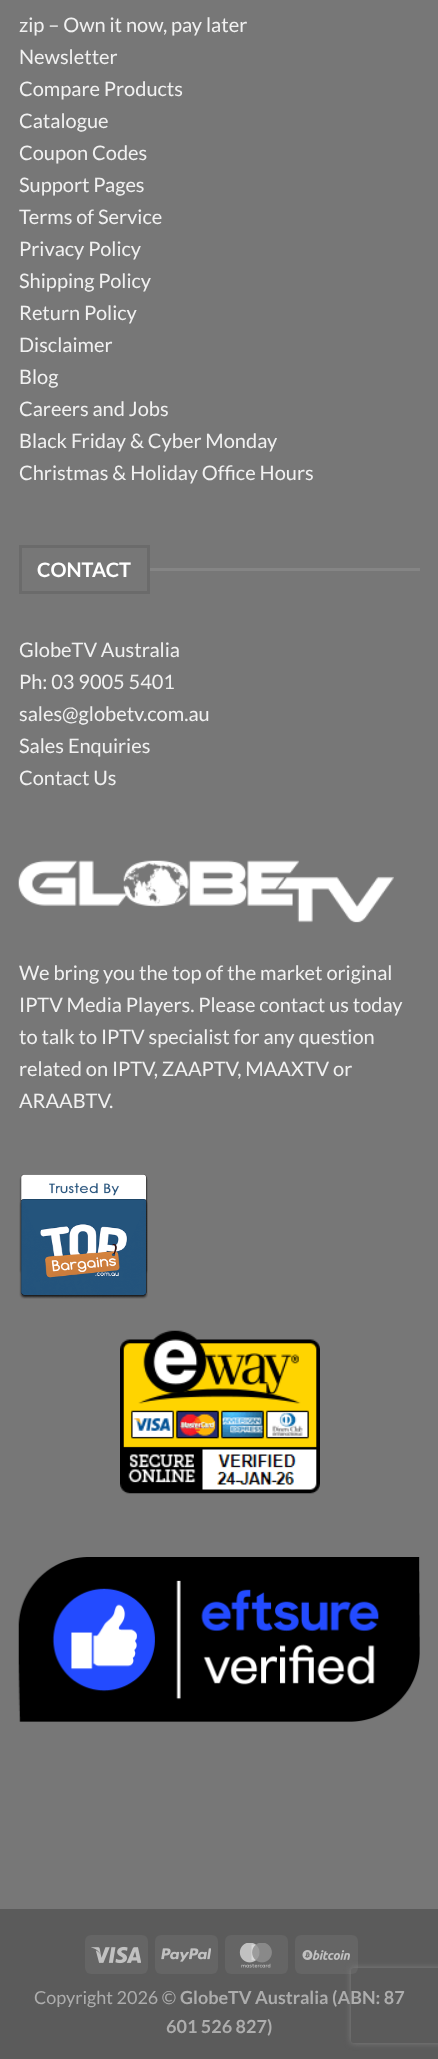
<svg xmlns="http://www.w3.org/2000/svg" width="438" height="2059">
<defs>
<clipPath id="clip1"><path d="M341 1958h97v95h-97zm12.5 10h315c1.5 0 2.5 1 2.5 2.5v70c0 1.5-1 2.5-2.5 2.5h-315c-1.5 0-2.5-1-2.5-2.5v-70c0-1.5 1-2.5 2.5-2.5z" clip-rule="evenodd"/></clipPath>
</defs>
<rect width="100%" height="100%" fill="#777"/>
<text x="19" y="32" style="font-family:Lato;font-size:20px;fill:#f1f1f1">zip – Own it now, pay later</text>
<text x="19" y="64" style="font-family:Lato;font-size:20px;fill:#f1f1f1">Newsletter</text>
<text x="19" y="96" style="font-family:Lato;font-size:20px;fill:#f1f1f1">Compare Products</text>
<text x="19" y="128" style="font-family:Lato;font-size:20px;fill:#f1f1f1">Catalogue</text>
<text x="19" y="160" style="font-family:Lato;font-size:20px;fill:#f1f1f1">Coupon Codes</text>
<text x="19" y="192" style="font-family:Lato;font-size:20px;fill:#f1f1f1">Support Pages</text>
<text x="19" y="224" style="font-family:Lato;font-size:20px;fill:#f1f1f1">Terms of Service</text>
<text x="19" y="256" style="font-family:Lato;font-size:20px;fill:#f1f1f1">Privacy Policy</text>
<text x="19" y="288" style="font-family:Lato;font-size:20px;fill:#f1f1f1">Shipping Policy</text>
<text x="19" y="320" style="font-family:Lato;font-size:20px;fill:#f1f1f1">Return Policy</text>
<text x="19" y="352" style="font-family:Lato;font-size:20px;fill:#f1f1f1">Disclaimer</text>
<text x="19" y="384" style="font-family:Lato;font-size:20px;fill:#f1f1f1">Blog</text>
<text x="19" y="416" style="font-family:Lato;font-size:20px;fill:#f1f1f1">Careers and Jobs</text>
<text x="19" y="448" style="font-family:Lato;font-size:20px;fill:#f1f1f1">Black Friday &amp; Cyber Monday</text>
<text x="19" y="480" style="font-family:Lato;font-size:20px;fill:#f1f1f1">Christmas &amp; Holiday Office Hours</text>
<rect x="20.5" y="546.5" width="128" height="46" fill="none" stroke="#6b6b6b" stroke-width="3"/>
<text x="37" y="577" style="font-family:Lato;font-size:20px;font-weight:bold;fill:#fff">CONTACT</text>
<rect x="150" y="568" width="270" height="3" fill="#858585"/>
<text x="19" y="657" style="font-family:Lato;font-size:20px;fill:#f1f1f1">GlobeTV Australia</text>
<text x="19" y="689" style="font-family:Lato;font-size:20px;fill:#f1f1f1">Ph: 03 9005 5401</text>
<text x="19" y="721" style="font-family:Lato;font-size:20px;fill:#f1f1f1">sales@globetv.com.au</text>
<text x="19" y="753" style="font-family:Lato;font-size:20px;fill:#f1f1f1">Sales Enquiries</text>
<text x="19" y="785" style="font-family:Lato;font-size:20px;fill:#f1f1f1">Contact Us</text>
<image x="18" y="860" width="376" height="63" href="media/1.png"/>
<text x="19" y="980" style="font-family:Lato;font-size:20px;fill:#f1f1f1">We bring you the top of the market original</text>
<text x="19" y="1012" style="font-family:Lato;font-size:20px;fill:#f1f1f1">IPTV Media Players. Please contact us today</text>
<text x="19" y="1044" style="font-family:Lato;font-size:20px;fill:#f1f1f1">to talk to IPTV specialist for any question</text>
<text x="19" y="1076" style="font-family:Lato;font-size:20px;fill:#f1f1f1">related on IPTV, ZAAPTV, MAAXTV or</text>
<text x="19" y="1108" style="font-family:Lato;font-size:20px;fill:#f1f1f1">ARAABTV.</text>
<image x="19" y="1174" width="129" height="125" href="media/2.png"/>
<image x="120" y="1330" width="200" height="164" href="media/3.png"/>
<image x="18" y="1557" width="402" height="165" href="media/4.png"/>
<rect y="1909" width="438" height="150" fill="#5b5b5b"/>
<rect x="85" y="1935" width="63" height="39" rx="6" fill="#656565"/>
<image x="91" y="1946" width="50" height="18" href="media/5.png"/>
<rect x="155" y="1935" width="63" height="39" rx="6" fill="#656565"/>
<image x="161" y="1948" width="50" height="14" href="media/6.png"/>
<rect x="225" y="1935" width="63" height="39" rx="6" fill="#656565"/>
<image x="239" y="1943" width="33" height="25" href="media/7.png"/>
<rect x="295" y="1935" width="63" height="39" rx="6" fill="#656565"/>
<image x="302" y="1950" width="48" height="10" href="media/8.png"/>
<text x="34" y="2004" style="font-family:Lato;font-size:18px;fill:#adadad">Copyright 2026 ©</text>
<text x="180" y="2004" style="font-family:Lato;font-size:18px;font-weight:bold;fill:#adadad">GlobeTV Australia (ABN: 87</text>
<text x="166" y="2033" style="font-family:Lato;font-size:18px;font-weight:bold;fill:#adadad">601 526 827)</text>
<g clip-path="url(#clip1)">
<rect x="351" y="1968" width="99" height="75" rx="2.5" fill="#808080" filter="blur(3px)"/>
</g>
</svg>
